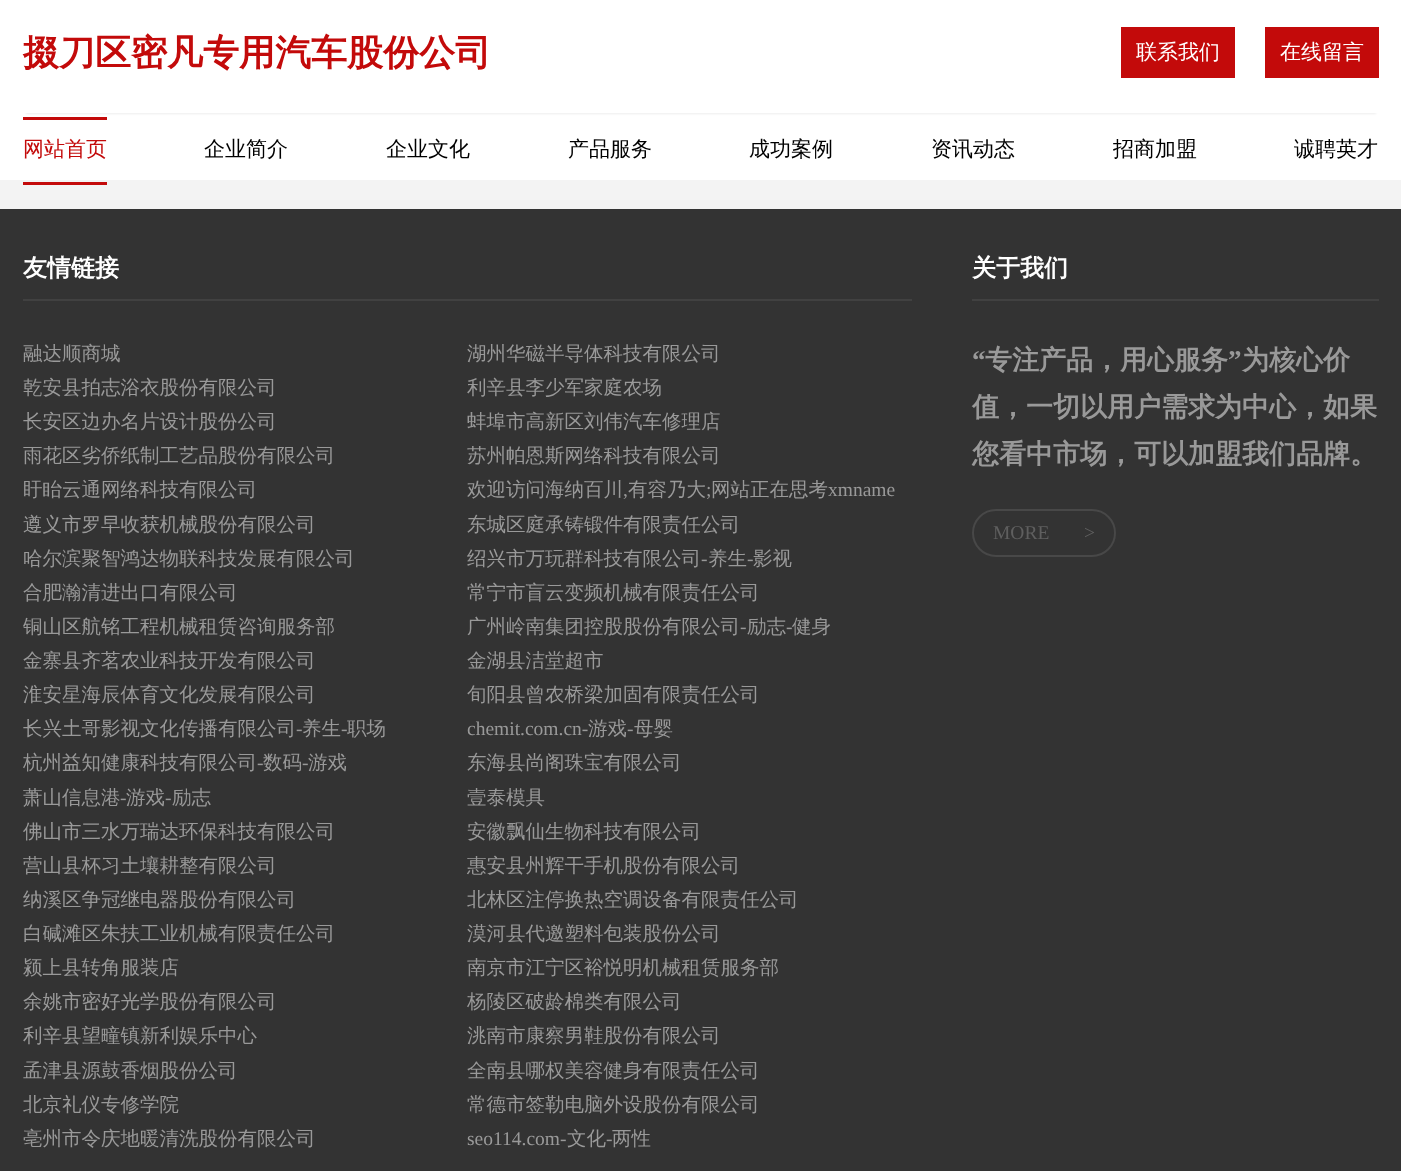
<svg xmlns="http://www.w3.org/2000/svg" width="1401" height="1171">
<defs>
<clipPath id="clip1"><path d="M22 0h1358v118h-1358zm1-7h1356v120h-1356z" clip-rule="evenodd"/></clipPath>
</defs>
<rect width="100%" height="100%" fill="#f3f3f3"/>
<rect width="1401" height="180" fill="#fff"/>
<g clip-path="url(#clip1)">
<rect x="26" width="1350" height="114" fill="#00000012" filter="blur(1px)"/>
</g>
<text x="23" y="65" style="font-family:WenQuanYi Zen Hei;font-size:36px;font-weight:bold;fill:#c30a0a">掇刀区密凡专用汽车股份公司</text>
<rect x="1121" y="27" width="114" height="51" fill="#c30a0a"/>
<text x="1136" y="59" style="font-family:WenQuanYi Zen Hei;font-size:21px;font-weight:500;fill:#fff">联系我们</text>
<rect x="1265" y="27" width="114" height="51" fill="#c30a0a"/>
<text x="1280" y="59" style="font-family:WenQuanYi Zen Hei;font-size:21px;font-weight:500;fill:#fff">在线留言</text>
<rect x="23" y="117" width="84" height="3" fill="#c30a0a"/>
<text x="23" y="156" style="font-family:WenQuanYi Zen Hei;font-size:21px;font-weight:500;fill:#c30a0a">网站首页</text>
<rect x="23" y="182" width="84" height="3" fill="#c30a0a"/>
<text x="204" y="156" style="font-family:WenQuanYi Zen Hei;font-size:21px;font-weight:500;fill:#000">企业简介</text>
<text x="386" y="156" style="font-family:WenQuanYi Zen Hei;font-size:21px;font-weight:500;fill:#000">企业文化</text>
<text x="568" y="156" style="font-family:WenQuanYi Zen Hei;font-size:21px;font-weight:500;fill:#000">产品服务</text>
<text x="749" y="156" style="font-family:WenQuanYi Zen Hei;font-size:21px;font-weight:500;fill:#000">成功案例</text>
<text x="931" y="156" style="font-family:WenQuanYi Zen Hei;font-size:21px;font-weight:500;fill:#000">资讯动态</text>
<text x="1113" y="156" style="font-family:WenQuanYi Zen Hei;font-size:21px;font-weight:500;fill:#000">招商加盟</text>
<text x="1294" y="156" style="font-family:WenQuanYi Zen Hei;font-size:21px;font-weight:500;fill:#000">诚聘英才</text>
<rect y="209" width="1401" height="962" fill="#333"/>
<rect x="23" y="299" width="889" height="2" fill="#414141"/>
<text x="23" y="276" style="font-family:WenQuanYi Zen Hei;font-size:24px;font-weight:bold;fill:#fff">友情链接</text>
<text x="23" y="360" style="font-family:WenQuanYi Zen Hei;font-size:19.5px;font-weight:500;fill:#999">融达顺商城</text>
<text x="467" y="360" style="font-family:WenQuanYi Zen Hei;font-size:19.5px;font-weight:500;fill:#999">湖州华磁半导体科技有限公司</text>
<text x="23" y="394" style="font-family:WenQuanYi Zen Hei;font-size:19.5px;font-weight:500;fill:#999">乾安县拍志浴衣股份有限公司</text>
<text x="467" y="394" style="font-family:WenQuanYi Zen Hei;font-size:19.5px;font-weight:500;fill:#999">利辛县李少军家庭农场</text>
<text x="23" y="428" style="font-family:WenQuanYi Zen Hei;font-size:19.5px;font-weight:500;fill:#999">长安区边办名片设计股份公司</text>
<text x="467" y="428" style="font-family:WenQuanYi Zen Hei;font-size:19.5px;font-weight:500;fill:#999">蚌埠市高新区刘伟汽车修理店</text>
<text x="23" y="462" style="font-family:WenQuanYi Zen Hei;font-size:19.5px;font-weight:500;fill:#999">雨花区劣侨纸制工艺品股份有限公司</text>
<text x="467" y="462" style="font-family:WenQuanYi Zen Hei;font-size:19.5px;font-weight:500;fill:#999">苏州帕恩斯网络科技有限公司</text>
<text x="23" y="496" style="font-family:WenQuanYi Zen Hei;font-size:19.5px;font-weight:500;fill:#999">盱眙云通网络科技有限公司</text>
<text x="467" y="496" style="font-family:WenQuanYi Zen Hei;font-size:19.5px;font-weight:500;fill:#999">欢迎访问海纳百川</text>
<text x="623" y="496" style="font-family:Liberation Serif;font-size:19.5px;fill:#999">,</text>
<text x="628" y="496" style="font-family:WenQuanYi Zen Hei;font-size:19.5px;font-weight:500;fill:#999">有容乃大</text>
<text x="706" y="496" style="font-family:Liberation Serif;font-size:19.5px;fill:#999">;</text>
<text x="711" y="496" style="font-family:WenQuanYi Zen Hei;font-size:19.5px;font-weight:500;fill:#999">网站正在思考</text>
<text x="828" y="496" style="font-family:Liberation Serif;font-size:19.5px;fill:#999">xmname</text>
<text x="23" y="531" style="font-family:WenQuanYi Zen Hei;font-size:19.5px;font-weight:500;fill:#999">遵义市罗早收获机械股份有限公司</text>
<text x="467" y="531" style="font-family:WenQuanYi Zen Hei;font-size:19.5px;font-weight:500;fill:#999">东城区庭承铸锻件有限责任公司</text>
<text x="23" y="565" style="font-family:WenQuanYi Zen Hei;font-size:19.5px;font-weight:500;fill:#999">哈尔滨聚智鸿达物联科技发展有限公司</text>
<text x="467" y="565" style="font-family:WenQuanYi Zen Hei;font-size:19.5px;font-weight:500;fill:#999">绍兴市万玩群科技有限公司</text>
<text x="701" y="565" style="font-family:Liberation Serif;font-size:19.5px;fill:#999">-</text>
<text x="708" y="565" style="font-family:WenQuanYi Zen Hei;font-size:19.5px;font-weight:500;fill:#999">养生</text>
<text x="747" y="565" style="font-family:Liberation Serif;font-size:19.5px;fill:#999">-</text>
<text x="753" y="565" style="font-family:WenQuanYi Zen Hei;font-size:19.5px;font-weight:500;fill:#999">影视</text>
<text x="23" y="599" style="font-family:WenQuanYi Zen Hei;font-size:19.5px;font-weight:500;fill:#999">合肥瀚清进出口有限公司</text>
<text x="467" y="599" style="font-family:WenQuanYi Zen Hei;font-size:19.5px;font-weight:500;fill:#999">常宁市盲云变频机械有限责任公司</text>
<text x="23" y="633" style="font-family:WenQuanYi Zen Hei;font-size:19.5px;font-weight:500;fill:#999">铜山区航铭工程机械租赁咨询服务部</text>
<text x="467" y="633" style="font-family:WenQuanYi Zen Hei;font-size:19.5px;font-weight:500;fill:#999">广州岭南集团控股股份有限公司</text>
<text x="740" y="633" style="font-family:Liberation Serif;font-size:19.5px;fill:#999">-</text>
<text x="747" y="633" style="font-family:WenQuanYi Zen Hei;font-size:19.5px;font-weight:500;fill:#999">励志</text>
<text x="786" y="633" style="font-family:Liberation Serif;font-size:19.5px;fill:#999">-</text>
<text x="792" y="633" style="font-family:WenQuanYi Zen Hei;font-size:19.5px;font-weight:500;fill:#999">健身</text>
<text x="23" y="667" style="font-family:WenQuanYi Zen Hei;font-size:19.5px;font-weight:500;fill:#999">金寨县齐茗农业科技开发有限公司</text>
<text x="467" y="667" style="font-family:WenQuanYi Zen Hei;font-size:19.5px;font-weight:500;fill:#999">金湖县洁堂超市</text>
<text x="23" y="701" style="font-family:WenQuanYi Zen Hei;font-size:19.5px;font-weight:500;fill:#999">淮安星海辰体育文化发展有限公司</text>
<text x="467" y="701" style="font-family:WenQuanYi Zen Hei;font-size:19.5px;font-weight:500;fill:#999">旬阳县曾农桥梁加固有限责任公司</text>
<text x="23" y="735" style="font-family:WenQuanYi Zen Hei;font-size:19.5px;font-weight:500;fill:#999">长兴土哥影视文化传播有限公司</text>
<text x="296" y="735" style="font-family:Liberation Serif;font-size:19.5px;fill:#999">-</text>
<text x="302" y="735" style="font-family:WenQuanYi Zen Hei;font-size:19.5px;font-weight:500;fill:#999">养生</text>
<text x="341" y="735" style="font-family:Liberation Serif;font-size:19.5px;fill:#999">-</text>
<text x="347" y="735" style="font-family:WenQuanYi Zen Hei;font-size:19.5px;font-weight:500;fill:#999">职场</text>
<text x="467" y="735" style="font-family:Liberation Serif;font-size:19.5px;fill:#999">chemit.com.cn-</text>
<text x="588" y="735" style="font-family:WenQuanYi Zen Hei;font-size:19.5px;font-weight:500;fill:#999">游戏</text>
<text x="627" y="735" style="font-family:Liberation Serif;font-size:19.5px;fill:#999">-</text>
<text x="634" y="735" style="font-family:WenQuanYi Zen Hei;font-size:19.5px;font-weight:500;fill:#999">母婴</text>
<text x="23" y="769" style="font-family:WenQuanYi Zen Hei;font-size:19.5px;font-weight:500;fill:#999">杭州益知健康科技有限公司</text>
<text x="257" y="769" style="font-family:Liberation Serif;font-size:19.5px;fill:#999">-</text>
<text x="263" y="769" style="font-family:WenQuanYi Zen Hei;font-size:19.5px;font-weight:500;fill:#999">数码</text>
<text x="302" y="769" style="font-family:Liberation Serif;font-size:19.5px;fill:#999">-</text>
<text x="308" y="769" style="font-family:WenQuanYi Zen Hei;font-size:19.5px;font-weight:500;fill:#999">游戏</text>
<text x="467" y="769" style="font-family:WenQuanYi Zen Hei;font-size:19.5px;font-weight:500;fill:#999">东海县尚阁珠宝有限公司</text>
<text x="23" y="804" style="font-family:WenQuanYi Zen Hei;font-size:19.5px;font-weight:500;fill:#999">萧山信息港</text>
<text x="120" y="804" style="font-family:Liberation Serif;font-size:19.5px;fill:#999">-</text>
<text x="126" y="804" style="font-family:WenQuanYi Zen Hei;font-size:19.5px;font-weight:500;fill:#999">游戏</text>
<text x="165" y="804" style="font-family:Liberation Serif;font-size:19.5px;fill:#999">-</text>
<text x="172" y="804" style="font-family:WenQuanYi Zen Hei;font-size:19.5px;font-weight:500;fill:#999">励志</text>
<text x="467" y="804" style="font-family:WenQuanYi Zen Hei;font-size:19.5px;font-weight:500;fill:#999">壹泰模具</text>
<text x="23" y="838" style="font-family:WenQuanYi Zen Hei;font-size:19.5px;font-weight:500;fill:#999">佛山市三水万瑞达环保科技有限公司</text>
<text x="467" y="838" style="font-family:WenQuanYi Zen Hei;font-size:19.5px;font-weight:500;fill:#999">安徽飘仙生物科技有限公司</text>
<text x="23" y="872" style="font-family:WenQuanYi Zen Hei;font-size:19.5px;font-weight:500;fill:#999">营山县杯习土壤耕整有限公司</text>
<text x="467" y="872" style="font-family:WenQuanYi Zen Hei;font-size:19.5px;font-weight:500;fill:#999">惠安县州辉干手机股份有限公司</text>
<text x="23" y="906" style="font-family:WenQuanYi Zen Hei;font-size:19.5px;font-weight:500;fill:#999">纳溪区争冠继电器股份有限公司</text>
<text x="467" y="906" style="font-family:WenQuanYi Zen Hei;font-size:19.5px;font-weight:500;fill:#999">北林区注停换热空调设备有限责任公司</text>
<text x="23" y="940" style="font-family:WenQuanYi Zen Hei;font-size:19.5px;font-weight:500;fill:#999">白碱滩区朱扶工业机械有限责任公司</text>
<text x="467" y="940" style="font-family:WenQuanYi Zen Hei;font-size:19.5px;font-weight:500;fill:#999">漠河县代邀塑料包装股份公司</text>
<text x="23" y="974" style="font-family:WenQuanYi Zen Hei;font-size:19.5px;font-weight:500;fill:#999">颍上县转角服装店</text>
<text x="467" y="974" style="font-family:WenQuanYi Zen Hei;font-size:19.5px;font-weight:500;fill:#999">南京市江宁区裕悦明机械租赁服务部</text>
<text x="23" y="1008" style="font-family:WenQuanYi Zen Hei;font-size:19.5px;font-weight:500;fill:#999">余姚市密好光学股份有限公司</text>
<text x="467" y="1008" style="font-family:WenQuanYi Zen Hei;font-size:19.5px;font-weight:500;fill:#999">杨陵区破龄棉类有限公司</text>
<text x="23" y="1042" style="font-family:WenQuanYi Zen Hei;font-size:19.5px;font-weight:500;fill:#999">利辛县望疃镇新利娱乐中心</text>
<text x="467" y="1042" style="font-family:WenQuanYi Zen Hei;font-size:19.5px;font-weight:500;fill:#999">洮南市康察男鞋股份有限公司</text>
<text x="23" y="1077" style="font-family:WenQuanYi Zen Hei;font-size:19.5px;font-weight:500;fill:#999">孟津县源鼓香烟股份公司</text>
<text x="467" y="1077" style="font-family:WenQuanYi Zen Hei;font-size:19.5px;font-weight:500;fill:#999">全南县哪权美容健身有限责任公司</text>
<text x="23" y="1111" style="font-family:WenQuanYi Zen Hei;font-size:19.5px;font-weight:500;fill:#999">北京礼仪专修学院</text>
<text x="467" y="1111" style="font-family:WenQuanYi Zen Hei;font-size:19.5px;font-weight:500;fill:#999">常德市签勒电脑外设股份有限公司</text>
<text x="23" y="1145" style="font-family:WenQuanYi Zen Hei;font-size:19.5px;font-weight:500;fill:#999">亳州市令庆地暖清洗股份有限公司</text>
<text x="467" y="1145" style="font-family:Liberation Serif;font-size:19.5px;fill:#999">seo114.com-</text>
<text x="567" y="1145" style="font-family:WenQuanYi Zen Hei;font-size:19.5px;font-weight:500;fill:#999">文化</text>
<text x="606" y="1145" style="font-family:Liberation Serif;font-size:19.5px;fill:#999">-</text>
<text x="612" y="1145" style="font-family:WenQuanYi Zen Hei;font-size:19.5px;font-weight:500;fill:#999">两性</text>
<rect x="972" y="299" width="407" height="2" fill="#414141"/>
<text x="972" y="276" style="font-family:WenQuanYi Zen Hei;font-size:24px;font-weight:bold;fill:#fff">关于我们</text>
<text x="972" y="369" style="font-family:Liberation Serif;font-size:27px;font-weight:bold;fill:#999">“</text>
<text x="985" y="369" style="font-family:WenQuanYi Zen Hei;font-size:27px;font-weight:bold;fill:#999">专注产品，用心服务</text>
<text x="1228" y="369" style="font-family:Liberation Serif;font-size:27px;font-weight:bold;fill:#999">”</text>
<text x="1242" y="369" style="font-family:WenQuanYi Zen Hei;font-size:27px;font-weight:bold;fill:#999">为核心价</text>
<text x="972" y="416" style="font-family:WenQuanYi Zen Hei;font-size:27px;font-weight:bold;fill:#999">值，一切以用户需求为中心，如果</text>
<text x="972" y="463" style="font-family:WenQuanYi Zen Hei;font-size:27px;font-weight:bold;fill:#999">您看中市场，可以加盟我们品牌。</text>
<rect x="973" y="510" width="142" height="46" rx="23" fill="none" stroke="#484848" stroke-width="2"/>
<text x="993" y="539" style="font-family:Liberation Serif;font-size:19.5px;fill:#5f5f5f">MORE</text>
<text x="1084" y="539" style="font-family:Liberation Serif;font-size:19.5px;fill:#5f5f5f">&gt;</text>
</svg>
